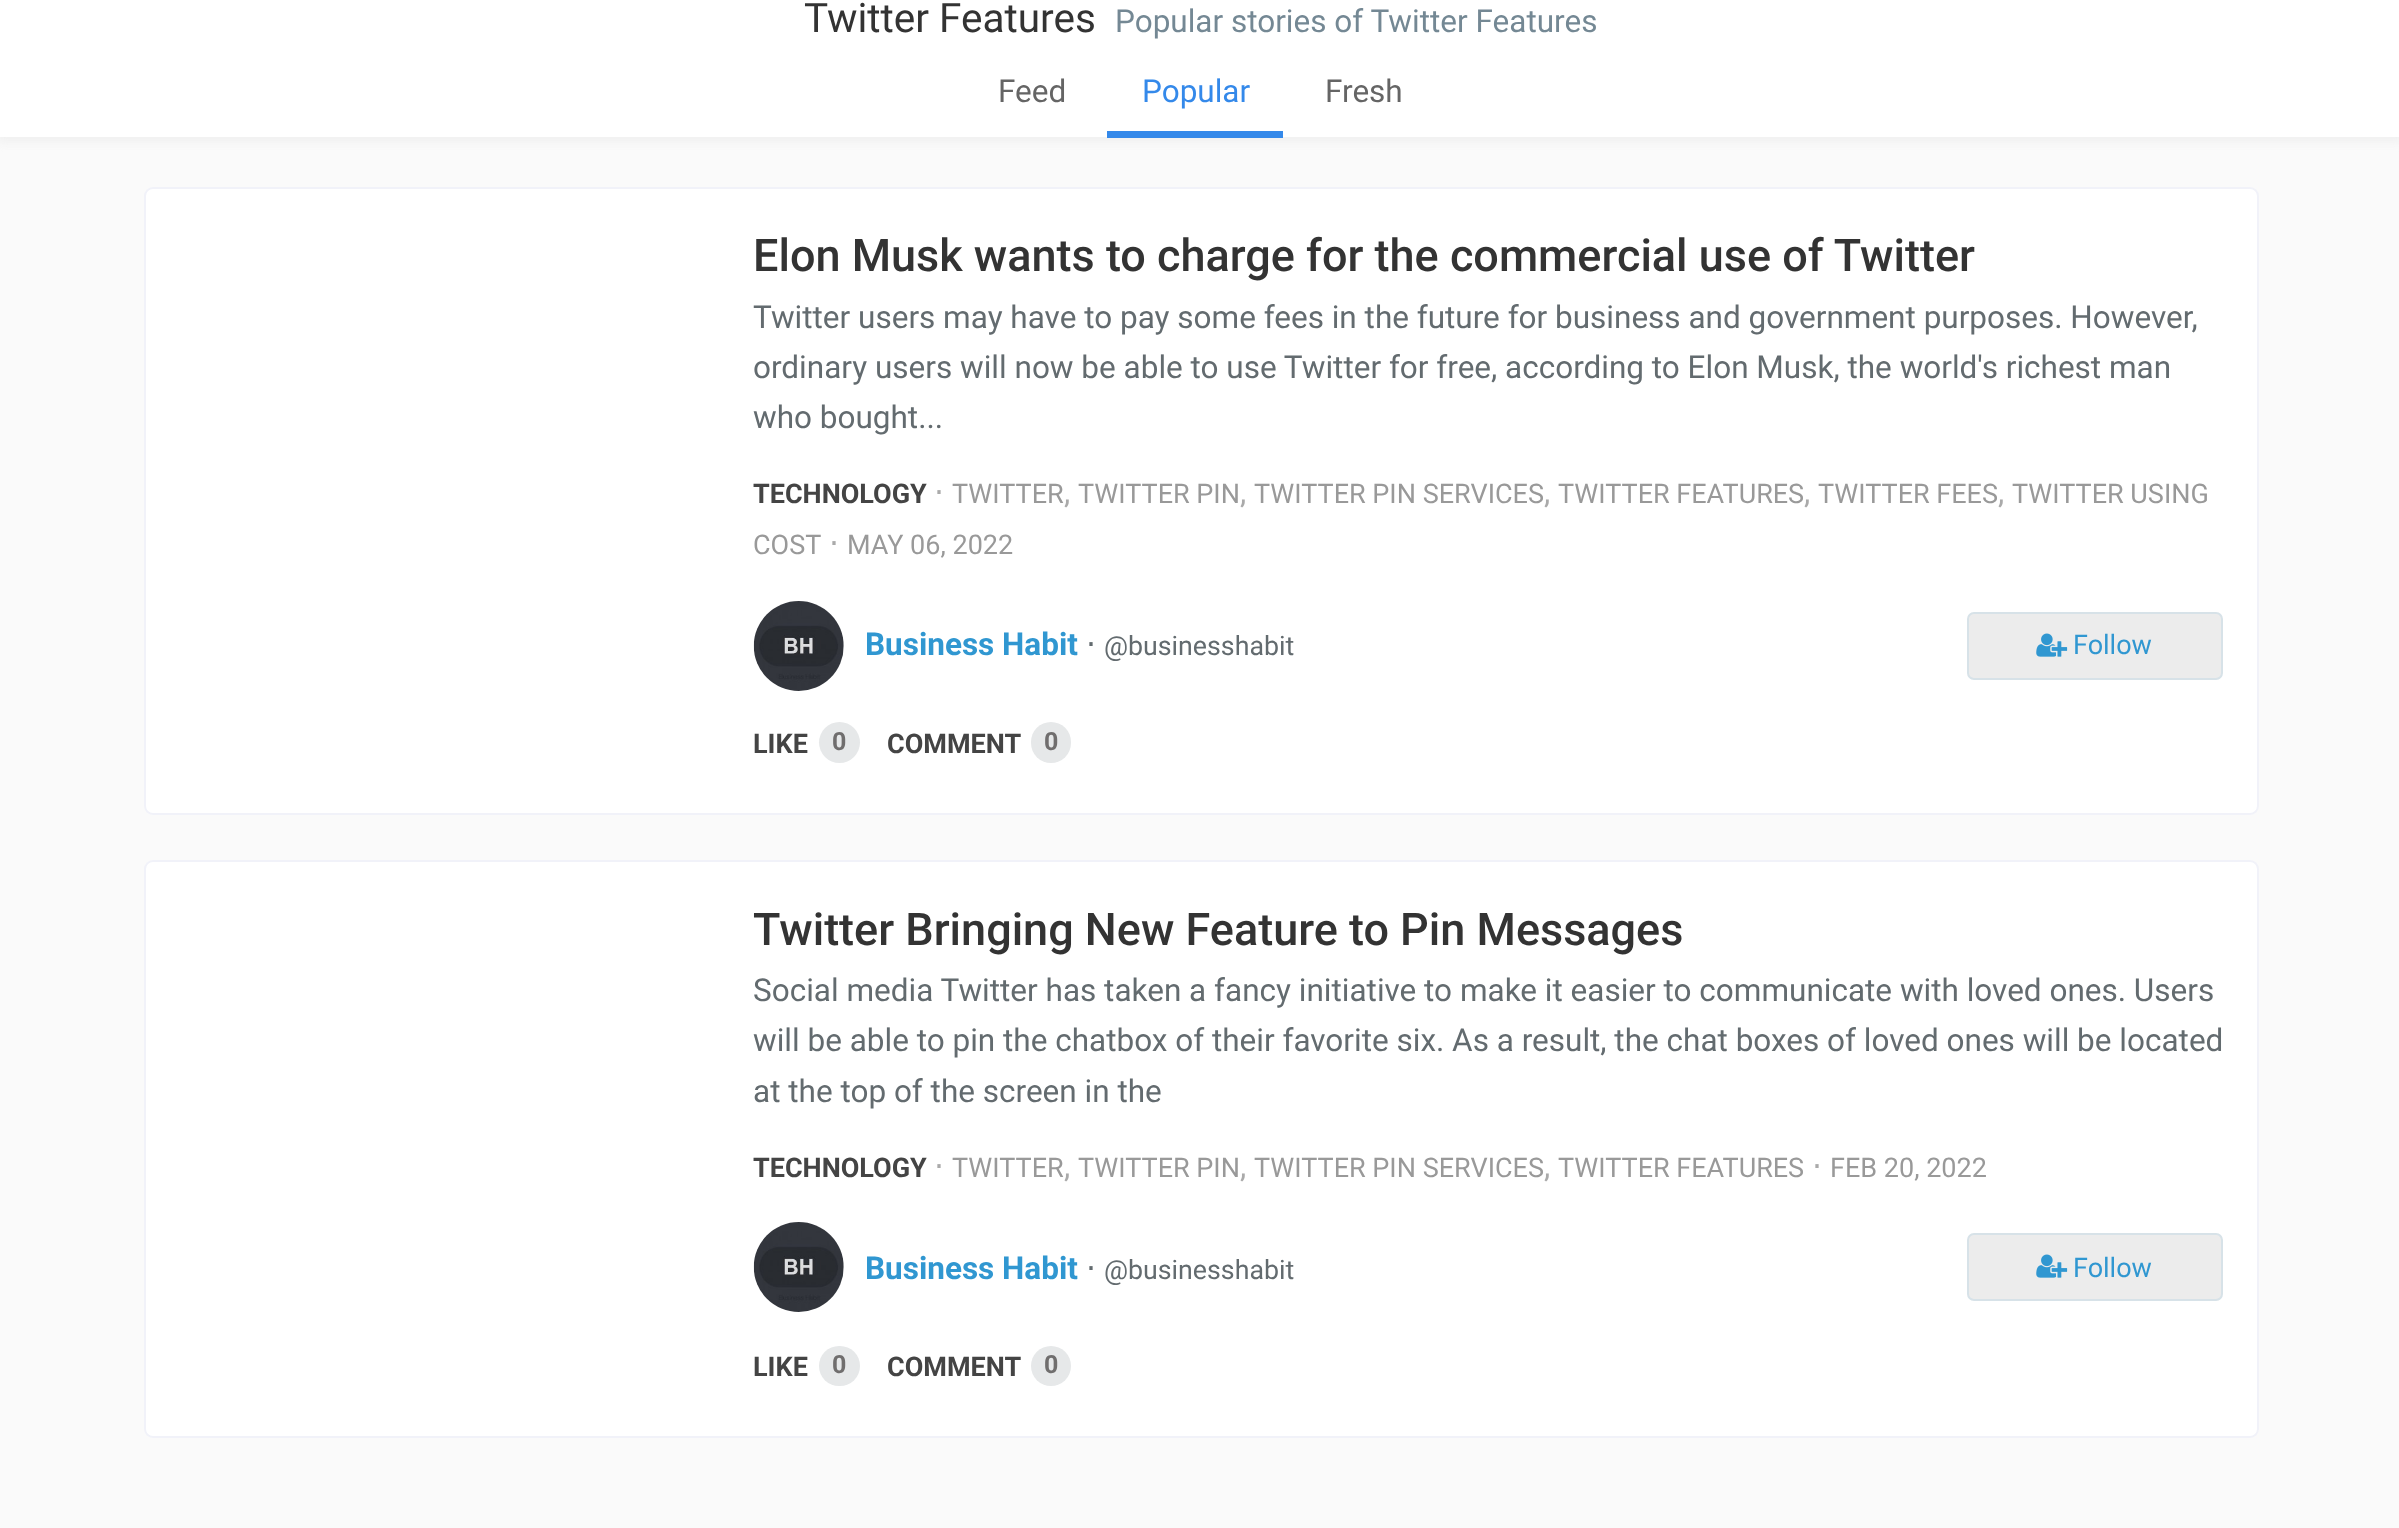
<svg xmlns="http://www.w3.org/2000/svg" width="2399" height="1528">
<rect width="100%" height="100%" fill="#fafafa"/>
<rect x="-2" y="-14" width="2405" height="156" fill="#f0f0f0" filter="blur(4.5px)"/>
<rect width="2399" height="137" fill="#fff"/>
<text x="804" y="32" style="font-family:Roboto;font-size:40.5px;fill:#333">Twitter Features</text>
<text x="1115" y="32" style="font-family:Roboto;font-size:31.5px;fill:#748894">Popular stories of Twitter Features</text>
<text x="998" y="102" style="font-family:Roboto;font-size:31.5px;fill:#656565">Feed</text>
<rect x="1107" y="131" width="176" height="7" fill="#3489ea"/>
<text x="1142" y="102" style="font-family:Roboto;font-size:31.5px;fill:#3489ea">Popular</text>
<text x="1325" y="102" style="font-family:Roboto;font-size:31.5px;fill:#656565">Fresh</text>
<rect x="145" y="188" width="2113" height="626" rx="8" fill="#fff" stroke="#f1f2f9" stroke-width="2"/>
<text x="753" y="271" style="font-family:Roboto;font-size:45px;font-weight:500;fill:#333">Elon Musk wants to charge for the commercial use of Twitter</text>
<text x="753" y="328" style="font-family:Roboto;font-size:31.5px;fill:#636b6f">Twitter users may have to pay some fees in the future for business and government purposes. However,</text>
<text x="753" y="378" style="font-family:Roboto;font-size:31.5px;fill:#636b6f">ordinary users will now be able to use Twitter for free, according to Elon Musk, the world's richest man</text>
<text x="753" y="428" style="font-family:Roboto;font-size:31.5px;fill:#636b6f">who bought...</text>
<text x="753" y="503" style="font-family:Roboto;font-size:27px;font-weight:bold;fill:#444">TECHNOLOGY</text>
<text x="934" y="503" style="font-family:DejaVu Sans;font-size:31.5px;fill:#aaa">⋅</text>
<text x="952" y="503" style="font-family:Roboto;font-size:27px;fill:#999">TWITTER</text>
<text x="1078" y="503" style="font-family:Roboto;font-size:27px;fill:#999">TWITTER PIN</text>
<text x="1254" y="503" style="font-family:Roboto;font-size:27px;fill:#999">TWITTER PIN SERVICES</text>
<text x="1558" y="503" style="font-family:Roboto;font-size:27px;fill:#999">TWITTER FEATURES</text>
<text x="1818" y="503" style="font-family:Roboto;font-size:27px;fill:#999">TWITTER FEES</text>
<text x="2012" y="503" style="font-family:Roboto;font-size:27px;fill:#999">TWITTER USING</text>
<text x="1064" y="503" style="font-family:Roboto;font-size:31.5px;fill:#aaa">,</text>
<text x="1240" y="503" style="font-family:Roboto;font-size:31.5px;fill:#aaa">,</text>
<text x="1544" y="503" style="font-family:Roboto;font-size:31.5px;fill:#aaa">,</text>
<text x="1804" y="503" style="font-family:Roboto;font-size:31.5px;fill:#aaa">,</text>
<text x="1998" y="503" style="font-family:Roboto;font-size:31.5px;fill:#aaa">,</text>
<text x="753" y="554" style="font-family:Roboto;font-size:27px;fill:#999">COST</text>
<text x="829" y="554" style="font-family:DejaVu Sans;font-size:31.5px;fill:#aaa">⋅</text>
<text x="847" y="554" style="font-family:Roboto;font-size:27px;fill:#999">MAY 06, 2022</text>
<image x="753" y="601" width="91" height="90" href="media/1.png"/>
<text x="865" y="655" style="font-family:Roboto;font-size:31.5px;font-weight:bold;fill:#3097d1">Business Habit</text>
<text x="1086" y="655" style="font-family:DejaVu Sans;font-size:31.5px;fill:#636b6f">⋅</text>
<text x="1104" y="655" style="font-family:Roboto;font-size:26.75px;fill:#636b6f">@businesshabit</text>
<rect x="1968" y="613" width="254" height="66" rx="6" fill="#ececec" stroke="#d7e2e8" stroke-width="2"/>
<image x="2036" y="633" width="32" height="24" href="media/2.png"/>
<text x="2073" y="654" style="font-family:Roboto;font-size:27px;fill:#3097d1">Follow</text>
<text x="753" y="753" style="font-family:Roboto;font-size:27px;font-weight:bold;fill:#444">LIKE</text>
<circle cx="839.5" cy="742.5" r="20.5" fill="#e6e8e9"/>
<text x="832" y="750" style="font-family:Roboto;font-size:25px;font-weight:bold;fill:#706e6e">0</text>
<text x="887" y="753" style="font-family:Roboto;font-size:27px;font-weight:bold;fill:#444">COMMENT</text>
<rect x="1031" y="722" width="40" height="41" rx="20" fill="#e6e8e9"/>
<text x="1044" y="750" style="font-family:Roboto;font-size:25px;font-weight:bold;fill:#706e6e">0</text>
<rect x="145" y="861" width="2113" height="576" rx="8" fill="#fff" stroke="#f1f2f9" stroke-width="2"/>
<text x="753" y="945" style="font-family:Roboto;font-size:45px;font-weight:500;fill:#333">Twitter Bringing New Feature to Pin Messages</text>
<text x="753" y="1001" style="font-family:Roboto;font-size:31.5px;fill:#636b6f">Social media Twitter has taken a fancy initiative to make it easier to communicate with loved ones. Users</text>
<text x="753" y="1051" style="font-family:Roboto;font-size:31.5px;fill:#636b6f">will be able to pin the chatbox of their favorite six. As a result, the chat boxes of loved ones will be located</text>
<text x="753" y="1102" style="font-family:Roboto;font-size:31.5px;fill:#636b6f">at the top of the screen in the</text>
<text x="753" y="1177" style="font-family:Roboto;font-size:27px;font-weight:bold;fill:#444">TECHNOLOGY</text>
<text x="934" y="1177" style="font-family:DejaVu Sans;font-size:31.5px;fill:#aaa">⋅</text>
<text x="952" y="1177" style="font-family:Roboto;font-size:27px;fill:#999">TWITTER</text>
<text x="1078" y="1177" style="font-family:Roboto;font-size:27px;fill:#999">TWITTER PIN</text>
<text x="1254" y="1177" style="font-family:Roboto;font-size:27px;fill:#999">TWITTER PIN SERVICES</text>
<text x="1558" y="1177" style="font-family:Roboto;font-size:27px;fill:#999">TWITTER FEATURES</text>
<text x="1812" y="1177" style="font-family:DejaVu Sans;font-size:31.5px;fill:#aaa">⋅</text>
<text x="1830" y="1177" style="font-family:Roboto;font-size:27px;fill:#999">FEB 20, 2022</text>
<text x="1064" y="1177" style="font-family:Roboto;font-size:31.5px;fill:#aaa">,</text>
<text x="1240" y="1177" style="font-family:Roboto;font-size:31.5px;fill:#aaa">,</text>
<text x="1544" y="1177" style="font-family:Roboto;font-size:31.5px;fill:#aaa">,</text>
<image x="753" y="1222" width="91" height="90" href="media/3.png"/>
<text x="865" y="1279" style="font-family:Roboto;font-size:31.5px;font-weight:bold;fill:#3097d1">Business Habit</text>
<text x="1086" y="1279" style="font-family:DejaVu Sans;font-size:31.5px;fill:#636b6f">⋅</text>
<text x="1104" y="1279" style="font-family:Roboto;font-size:26.75px;fill:#636b6f">@businesshabit</text>
<rect x="1968" y="1234" width="254" height="66" rx="6" fill="#ececec" stroke="#d7e2e8" stroke-width="2"/>
<image x="2036" y="1254" width="32" height="24" href="media/2.png"/>
<text x="2073" y="1277" style="font-family:Roboto;font-size:27px;fill:#3097d1">Follow</text>
<text x="753" y="1376" style="font-family:Roboto;font-size:27px;font-weight:bold;fill:#444">LIKE</text>
<rect x="819" y="1346" width="41" height="40" rx="20" fill="#e6e8e9"/>
<text x="832" y="1373" style="font-family:Roboto;font-size:25px;font-weight:bold;fill:#706e6e">0</text>
<text x="887" y="1376" style="font-family:Roboto;font-size:27px;font-weight:bold;fill:#444">COMMENT</text>
<circle cx="1051" cy="1366" r="20" fill="#e6e8e9"/>
<text x="1044" y="1373" style="font-family:Roboto;font-size:25px;font-weight:bold;fill:#706e6e">0</text>
</svg>
